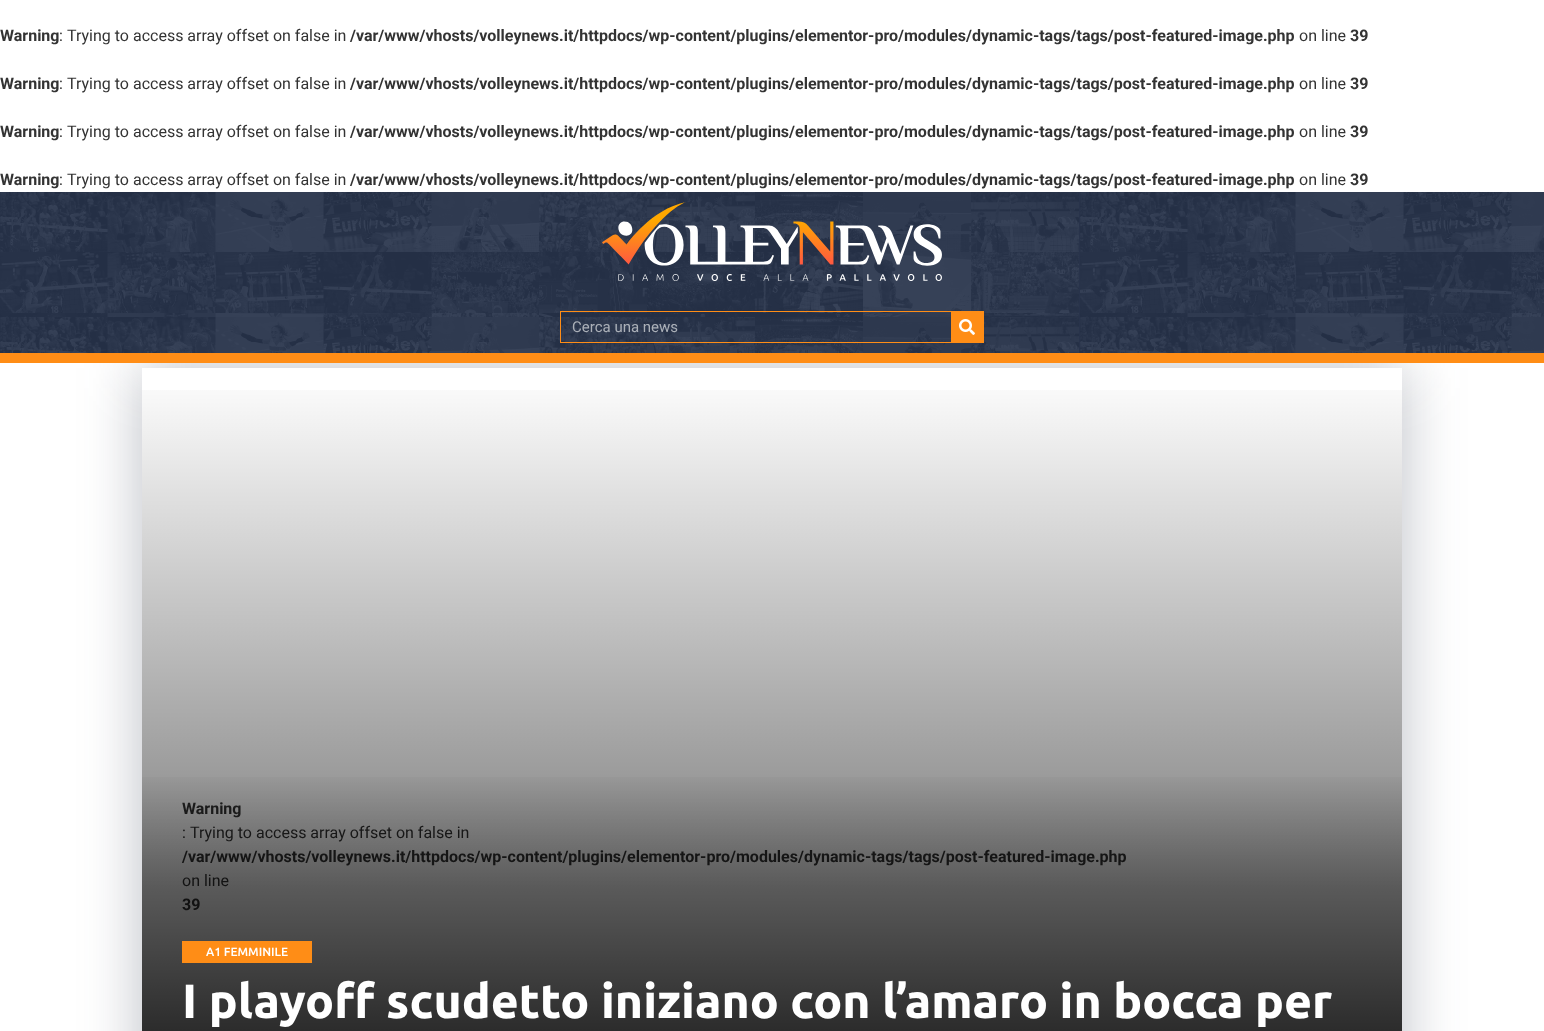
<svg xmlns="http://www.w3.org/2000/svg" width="1544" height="1031">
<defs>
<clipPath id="clip1"><path d="M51 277h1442v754h-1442zm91 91h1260v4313h-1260z" clip-rule="evenodd"/></clipPath>
<linearGradient id="g1" gradientUnits="userSpaceOnUse" x1="772" y1="368" x2="772" y2="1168"><stop offset="0" stop-color="#000" stop-opacity="0"/><stop offset="0.65" stop-color="#000" stop-opacity="0.5"/></linearGradient>
<linearGradient id="g2" gradientUnits="userSpaceOnUse" x1="772" y1="368" x2="772" y2="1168"><stop offset="0.5" stop-color="#000" stop-opacity="0"/><stop offset="1" stop-color="#000"/></linearGradient>
</defs>
<rect width="100%" height="100%" fill="#fff"/>
<text x="0" y="41" style="font-family:Roboto;font-size:16px;font-weight:bold;fill:#333">Warning</text>
<text x="59" y="41" style="font-family:Roboto;font-size:16px;fill:#333">:</text>
<text x="67" y="41" style="font-family:Roboto;font-size:16px;fill:#333">Trying to access array offset on false in</text>
<text x="350" y="41" style="font-family:Roboto;font-size:16px;font-weight:bold;fill:#333">/var/www/vhosts/volleynews.it/httpdocs/wp-content/plugins/elementor-pro/modules/dynamic-tags/tags/post-featured-image.php</text>
<text x="1299" y="41" style="font-family:Roboto;font-size:16px;fill:#333">on line</text>
<text x="1350" y="41" style="font-family:Roboto;font-size:16px;font-weight:bold;fill:#333">39</text>
<text x="0" y="89" style="font-family:Roboto;font-size:16px;font-weight:bold;fill:#333">Warning</text>
<text x="59" y="89" style="font-family:Roboto;font-size:16px;fill:#333">:</text>
<text x="67" y="89" style="font-family:Roboto;font-size:16px;fill:#333">Trying to access array offset on false in</text>
<text x="350" y="89" style="font-family:Roboto;font-size:16px;font-weight:bold;fill:#333">/var/www/vhosts/volleynews.it/httpdocs/wp-content/plugins/elementor-pro/modules/dynamic-tags/tags/post-featured-image.php</text>
<text x="1299" y="89" style="font-family:Roboto;font-size:16px;fill:#333">on line</text>
<text x="1350" y="89" style="font-family:Roboto;font-size:16px;font-weight:bold;fill:#333">39</text>
<text x="0" y="137" style="font-family:Roboto;font-size:16px;font-weight:bold;fill:#333">Warning</text>
<text x="59" y="137" style="font-family:Roboto;font-size:16px;fill:#333">:</text>
<text x="67" y="137" style="font-family:Roboto;font-size:16px;fill:#333">Trying to access array offset on false in</text>
<text x="350" y="137" style="font-family:Roboto;font-size:16px;font-weight:bold;fill:#333">/var/www/vhosts/volleynews.it/httpdocs/wp-content/plugins/elementor-pro/modules/dynamic-tags/tags/post-featured-image.php</text>
<text x="1299" y="137" style="font-family:Roboto;font-size:16px;fill:#333">on line</text>
<text x="1350" y="137" style="font-family:Roboto;font-size:16px;font-weight:bold;fill:#333">39</text>
<text x="0" y="185" style="font-family:Roboto;font-size:16px;font-weight:bold;fill:#333">Warning</text>
<text x="59" y="185" style="font-family:Roboto;font-size:16px;fill:#333">:</text>
<text x="67" y="185" style="font-family:Roboto;font-size:16px;fill:#333">Trying to access array offset on false in</text>
<text x="350" y="185" style="font-family:Roboto;font-size:16px;font-weight:bold;fill:#333">/var/www/vhosts/volleynews.it/httpdocs/wp-content/plugins/elementor-pro/modules/dynamic-tags/tags/post-featured-image.php</text>
<text x="1299" y="185" style="font-family:Roboto;font-size:16px;fill:#333">on line</text>
<text x="1350" y="185" style="font-family:Roboto;font-size:16px;font-weight:bold;fill:#333">39</text>
<g clip-path="url(#clip1)">
<rect x="142" y="368" width="1260" height="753" fill="#30394f54" filter="blur(30px)"/>
</g>
<rect y="192" width="1544" height="161" fill="#28334b"/>
<image x="0" y="192" width="1544" height="161" href="media/1.png"/>
<rect y="353" width="1544" height="10" fill="#ff8d16"/>
<image x="602" y="202" width="340" height="79" href="media/2.png"/>
<rect x="560.5" y="311.5" width="423" height="31" fill="none" stroke="#ff8d16"/>
<text x="572" y="332" style="font-family:Roboto;font-size:15px;fill:#abb0b8">Cerca una news</text>
<rect x="951" y="312" width="32" height="30" fill="#ff8d16"/>
<image x="959" y="319" width="16" height="16" href="media/3.png"/>
<text x="182" y="814" style="font-family:Roboto;font-size:16px;font-weight:bold;fill:#333">Warning</text>
<text x="182" y="838" style="font-family:Roboto;font-size:16px;fill:#333">:</text>
<text x="190" y="838" style="font-family:Roboto;font-size:16px;fill:#333">Trying to access array offset on false in</text>
<text x="182" y="862" style="font-family:Roboto;font-size:16px;font-weight:bold;fill:#333">/var/www/vhosts/volleynews.it/httpdocs/wp-content/plugins/elementor-pro/modules/dynamic-tags/tags/post-featured-image.php</text>
<text x="182" y="886" style="font-family:Roboto;font-size:16px;fill:#333">on line</text>
<text x="182" y="910" style="font-family:Roboto;font-size:16px;font-weight:bold;fill:#333">39</text>
<rect x="142" y="390" width="1260" height="641" fill="url(#g1)"/>
<rect x="142" y="777" width="1260" height="254" fill="url(#g2)"/>
<rect x="182" y="941" width="130" height="22" fill="#ff8d16"/>
<text x="206" y="956" style="font-family:Ubuntu;font-size:12px;font-weight:500;fill:#fff">A1 FEMMINILE</text>
<text x="182" y="1018" style="font-family:Ubuntu;font-size:48px;font-weight:bold;fill:#fff">I playoff scudetto iniziano con l’amaro in bocca per</text>
</svg>
